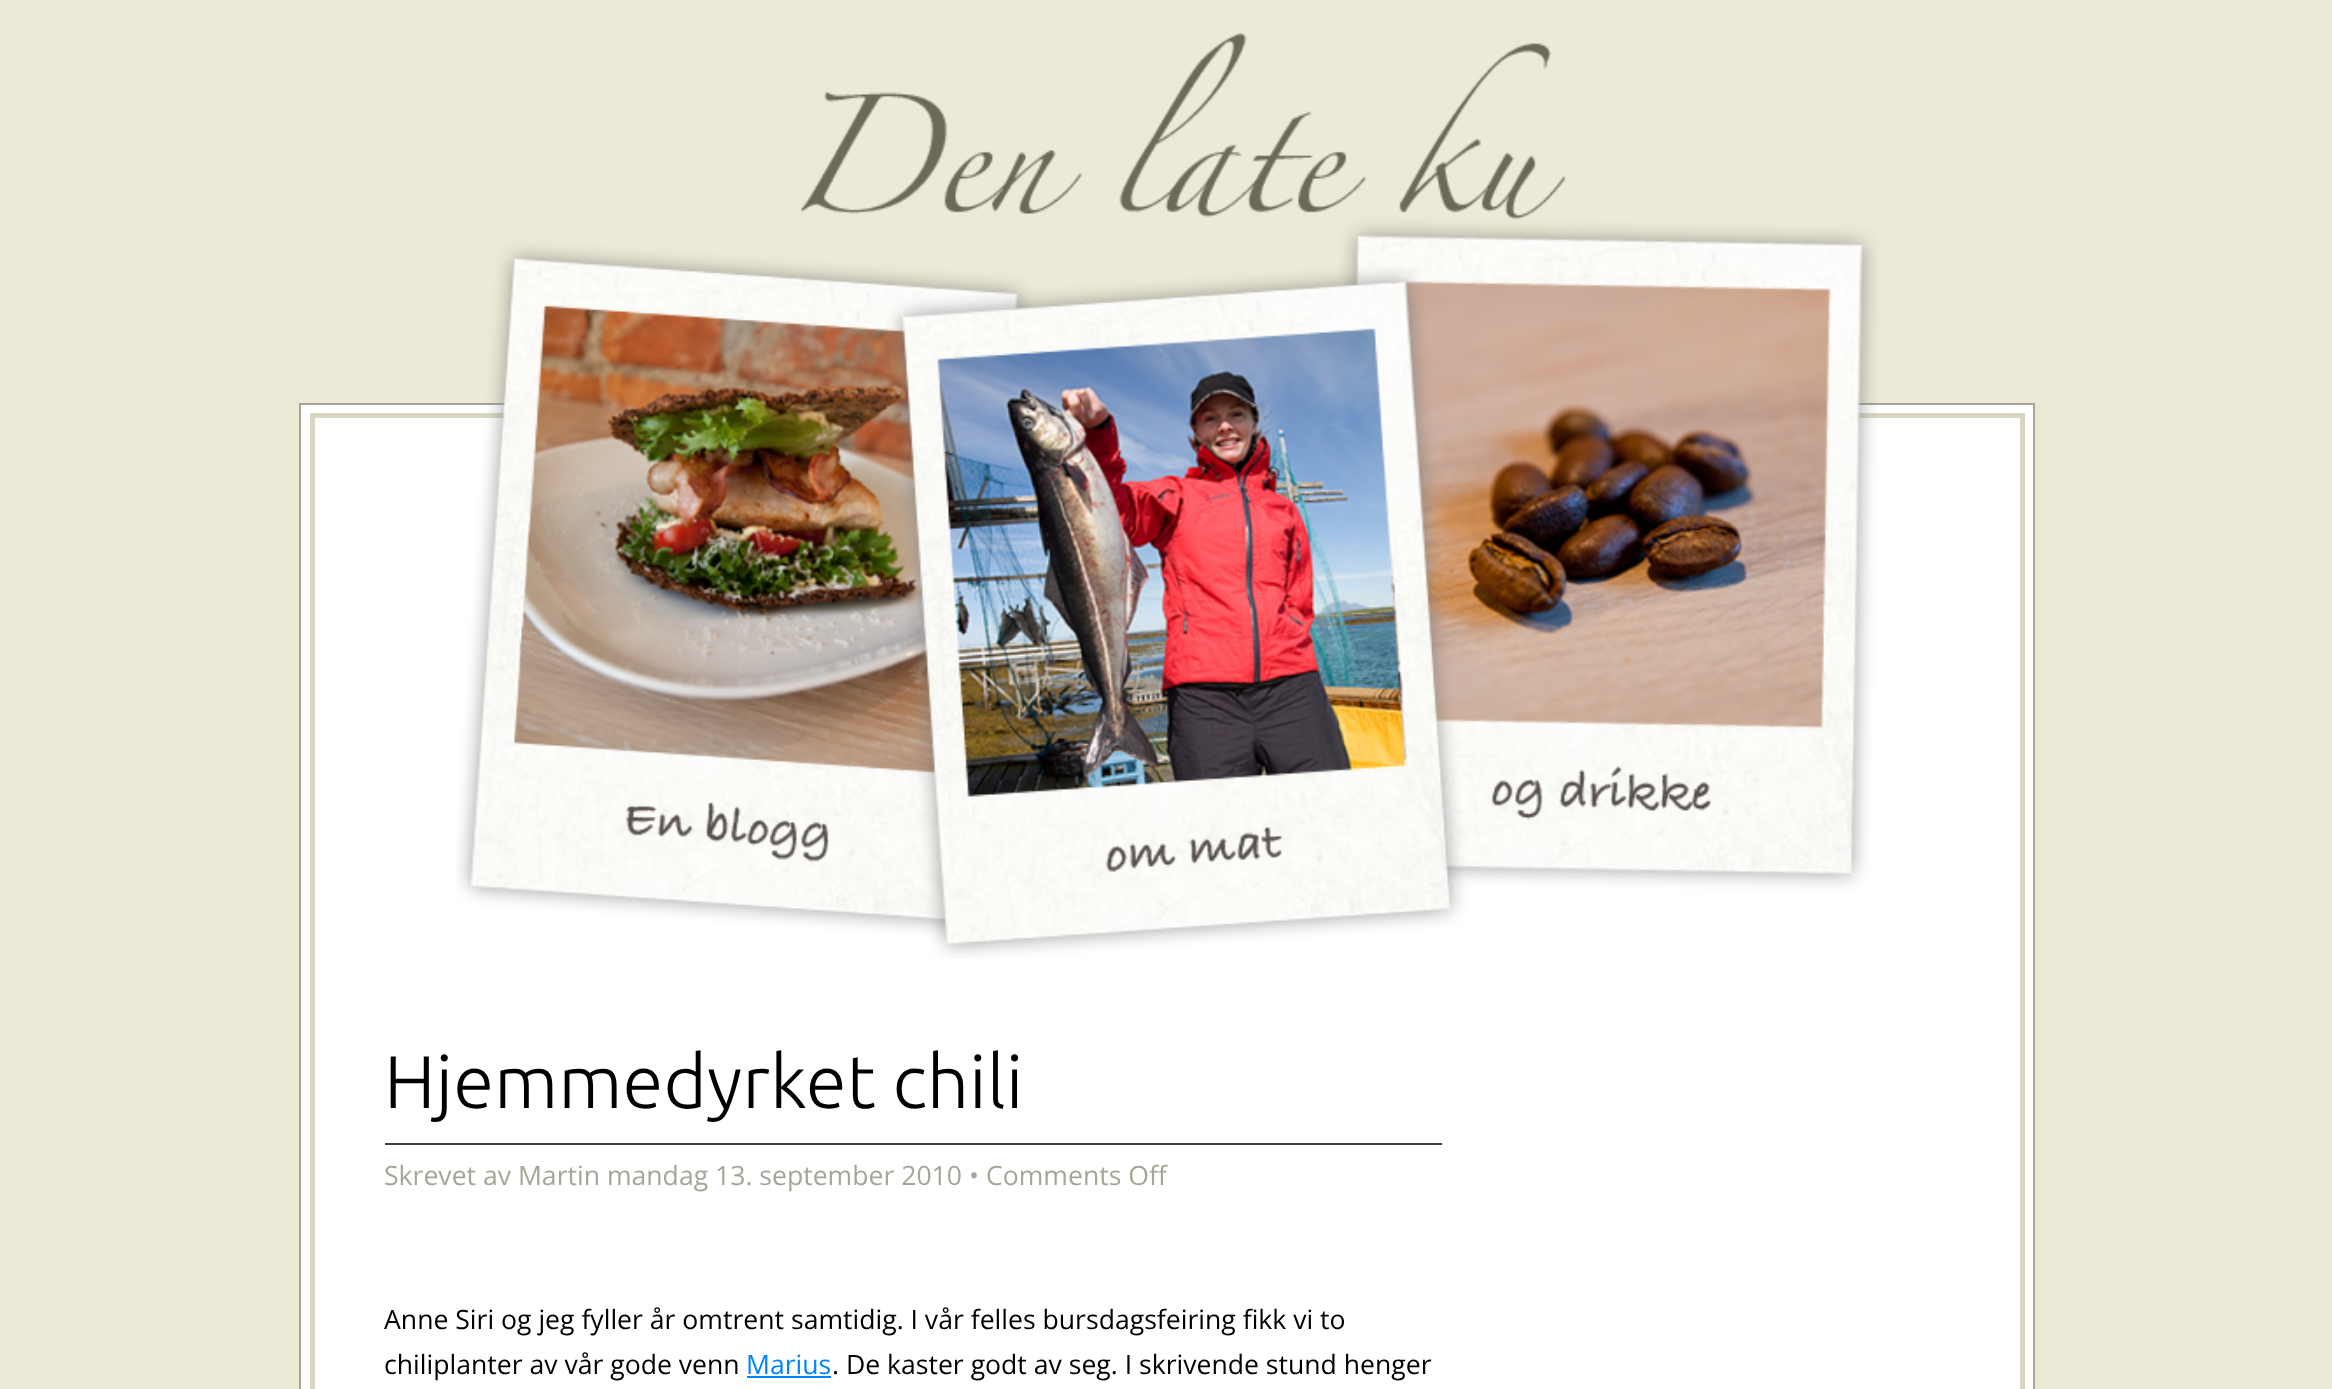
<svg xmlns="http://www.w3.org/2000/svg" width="2332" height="1389">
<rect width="100%" height="100%" fill="#ece9d6"/>
<rect x="300" y="404" width="1734" height="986" fill="#fff" stroke="#a7a597" stroke-width="2"/>
<rect x="312.5" y="415.5" width="1710" height="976" fill="none" stroke="#d9d7c3" stroke-width="5"/>
<image x="455" y="33" width="1423" height="926" href="media/1.png"/>
<rect x="385" y="1143" width="1057" height="2" fill="#413a3a"/>
<text x="384" y="1108" style="font-family:Ubuntu;font-size:74.5px;font-weight:300;fill:#000">Hjemmedyrket chili</text>
<text x="384" y="1185" style="font-family:Open Sans;font-size:26.6px;fill:#a7a597">Skrevet av Martin mandag 13. september 2010 •</text>
<text x="986" y="1185" style="font-family:Open Sans;font-size:26.6px;fill:#a7a597">Comments Off</text>
<text x="384" y="1329" style="font-family:Open Sans;font-size:26.6px;fill:#000">Anne Siri og jeg fyller år omtrent samtidig. I vår felles bursdagsfeiring fikk vi to</text>
<text x="384" y="1374" style="font-family:Open Sans;font-size:26.6px;fill:#000">chiliplanter av vår gode venn</text>
<text x="746" y="1374" style="font-family:Open Sans;font-size:26.6px;fill:#0084ff">Marius</text>
<rect x="747" y="1376" width="84" height="2" fill="#0084ff"/>
<text x="832" y="1374" style="font-family:Open Sans;font-size:26.6px;fill:#000">. De kaster godt av seg. I skrivende stund henger</text>
</svg>
